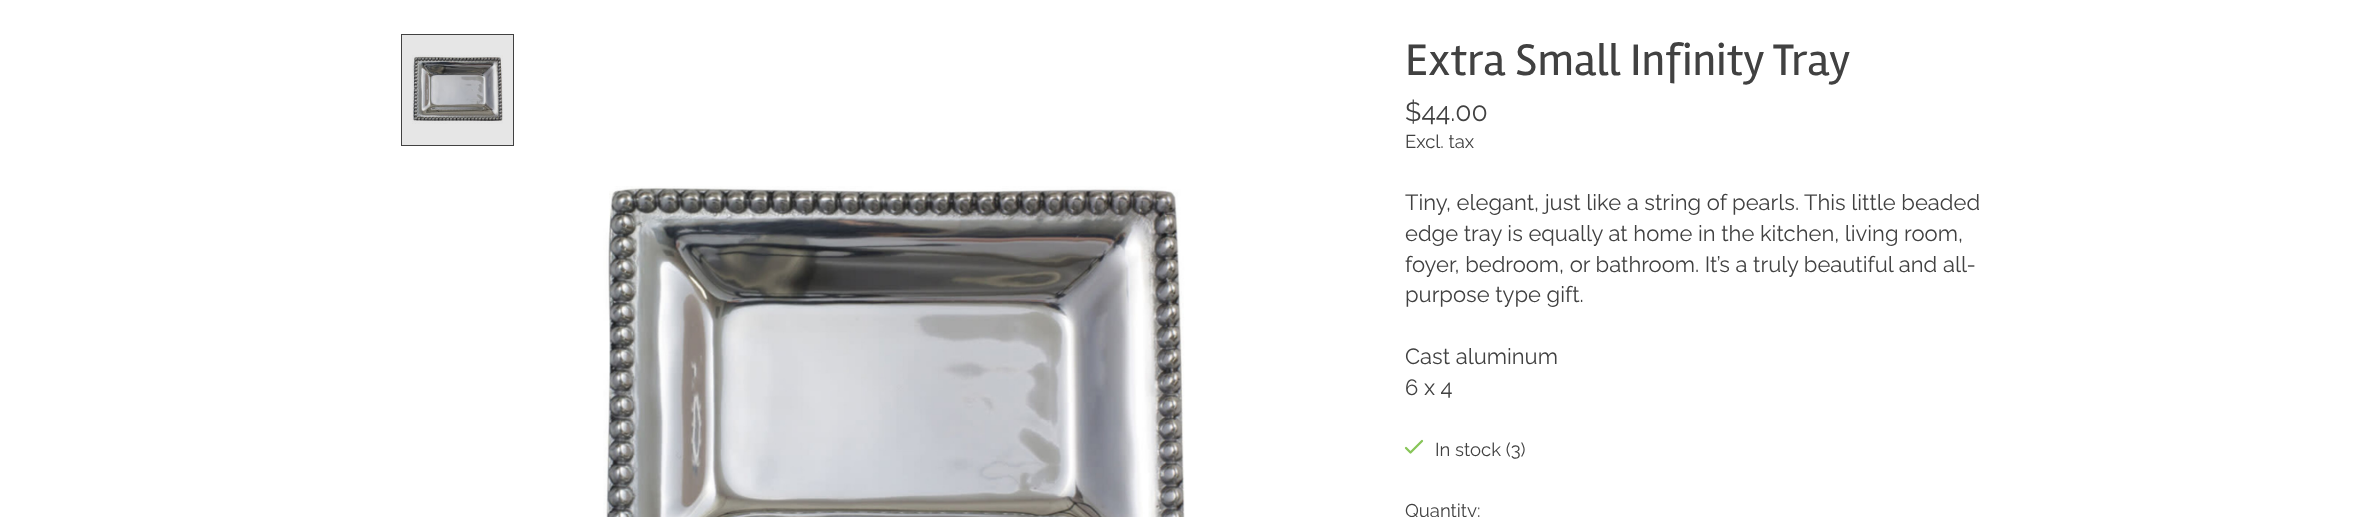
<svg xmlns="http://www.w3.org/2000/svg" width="2374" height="517">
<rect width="100%" height="100%" fill="#fff"/>
<rect x="402" y="35" width="111" height="110" fill="#e6e6e6"/>
<image x="412" y="55" width="91" height="69" href="media/1.png"/>
<rect x="401.5" y="34.5" width="112" height="111" fill="none" stroke="#414141"/>
<image x="603" y="186" width="582" height="331" href="media/2.png"/>
<text x="1405" y="75" style="font-family:Rambla;font-size:45.6px;fill:#414141">Extra Small Infinity Tray</text>
<text x="1405" y="121" style="font-family:Raleway;font-size:26.5px;fill:#414141">$44.00</text>
<text x="1405" y="148" style="font-family:Raleway;font-size:18.5px;fill:#414141">Excl. tax</text>
<text x="1405" y="210" style="font-family:Raleway;font-size:22px;fill:#414141">Tiny, elegant, just like a string of pearls. This little beaded</text>
<text x="1405" y="241" style="font-family:Raleway;font-size:22px;fill:#414141">edge tray is equally at home in the kitchen, living room,</text>
<text x="1405" y="272" style="font-family:Raleway;font-size:22px;fill:#414141">foyer, bedroom, or bathroom. It’s a truly beautiful and all-</text>
<text x="1405" y="302" style="font-family:Raleway;font-size:22px;fill:#414141">purpose type gift.</text>
<text x="1405" y="364" style="font-family:Raleway;font-size:22px;fill:#414141">Cast aluminum</text>
<text x="1405" y="395" style="font-family:Raleway;font-size:22px;fill:#414141">6 x 4</text>
<path d="M1406 448l4.5 4.5l11.5-11.5" fill="none" stroke="#88c559" stroke-width="2.3" stroke-linecap="round" stroke-linejoin="round"/>
<text x="1435" y="456" style="font-family:Raleway;font-size:18.5px;fill:#414141">In stock (3)</text>
<text x="1405" y="517" style="font-family:Raleway;font-size:18.5px;fill:#414141">Quantity:</text>
</svg>
